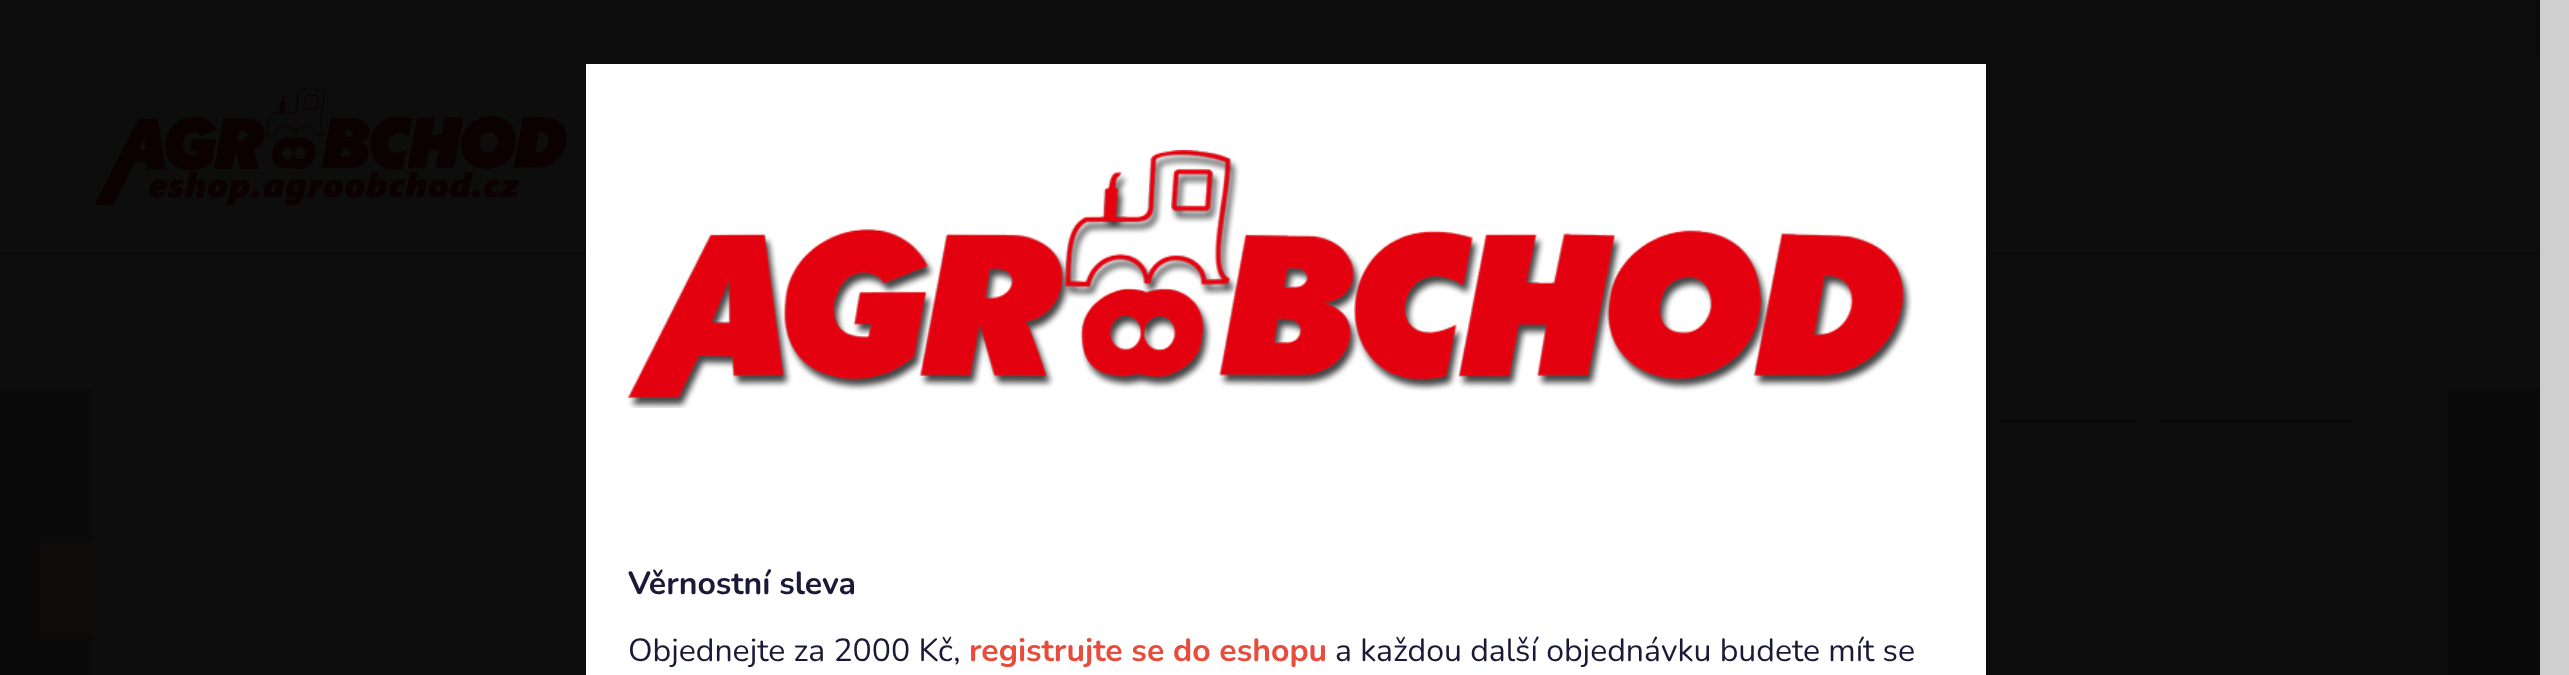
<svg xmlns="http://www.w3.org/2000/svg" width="2569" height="675">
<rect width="100%" height="100%" fill="#cfcfcf"/>
<rect y="390" width="2540" height="285" fill="#0a0a0a"/>
<rect width="2540" height="58" fill="#0c0c0c"/>
<rect y="58" width="2540" height="332" fill="#0d0d0d"/>
<image x="94" y="88" width="474" height="118" href="media/1.png"/>
<rect y="252" width="2540" height="2" fill="#0a0a0a"/>
<rect x="40" y="540" width="52" height="96" fill="#0d0c0be6"/>
<rect x="92" y="390" width="2356" height="285" fill="#0d0d0d"/>
<rect x="1996" y="420" width="142" height="2" fill="#090909"/>
<rect x="2160" y="420" width="194" height="2" fill="#090909"/>
<rect x="586" y="64" width="1400" height="611" fill="#fff"/>
<image x="628" y="150" width="1284" height="258" href="media/2.png"/>
<text x="628" y="594" style="font-family:Nunito;font-size:32px;font-weight:bold;fill:#1a1937">Věrnostní sleva</text>
<text x="628" y="661" style="font-family:Nunito;font-size:32px;fill:#1a1937">Objednejte za 2000 Kč,</text>
<text x="969" y="661" style="font-family:Nunito;font-size:32px;font-weight:bold;fill:#e74c3c">registrujte se do eshopu</text>
<text x="1335" y="661" style="font-family:Nunito;font-size:32px;fill:#1a1937">a každou další objednávku budete mít se</text>
</svg>
